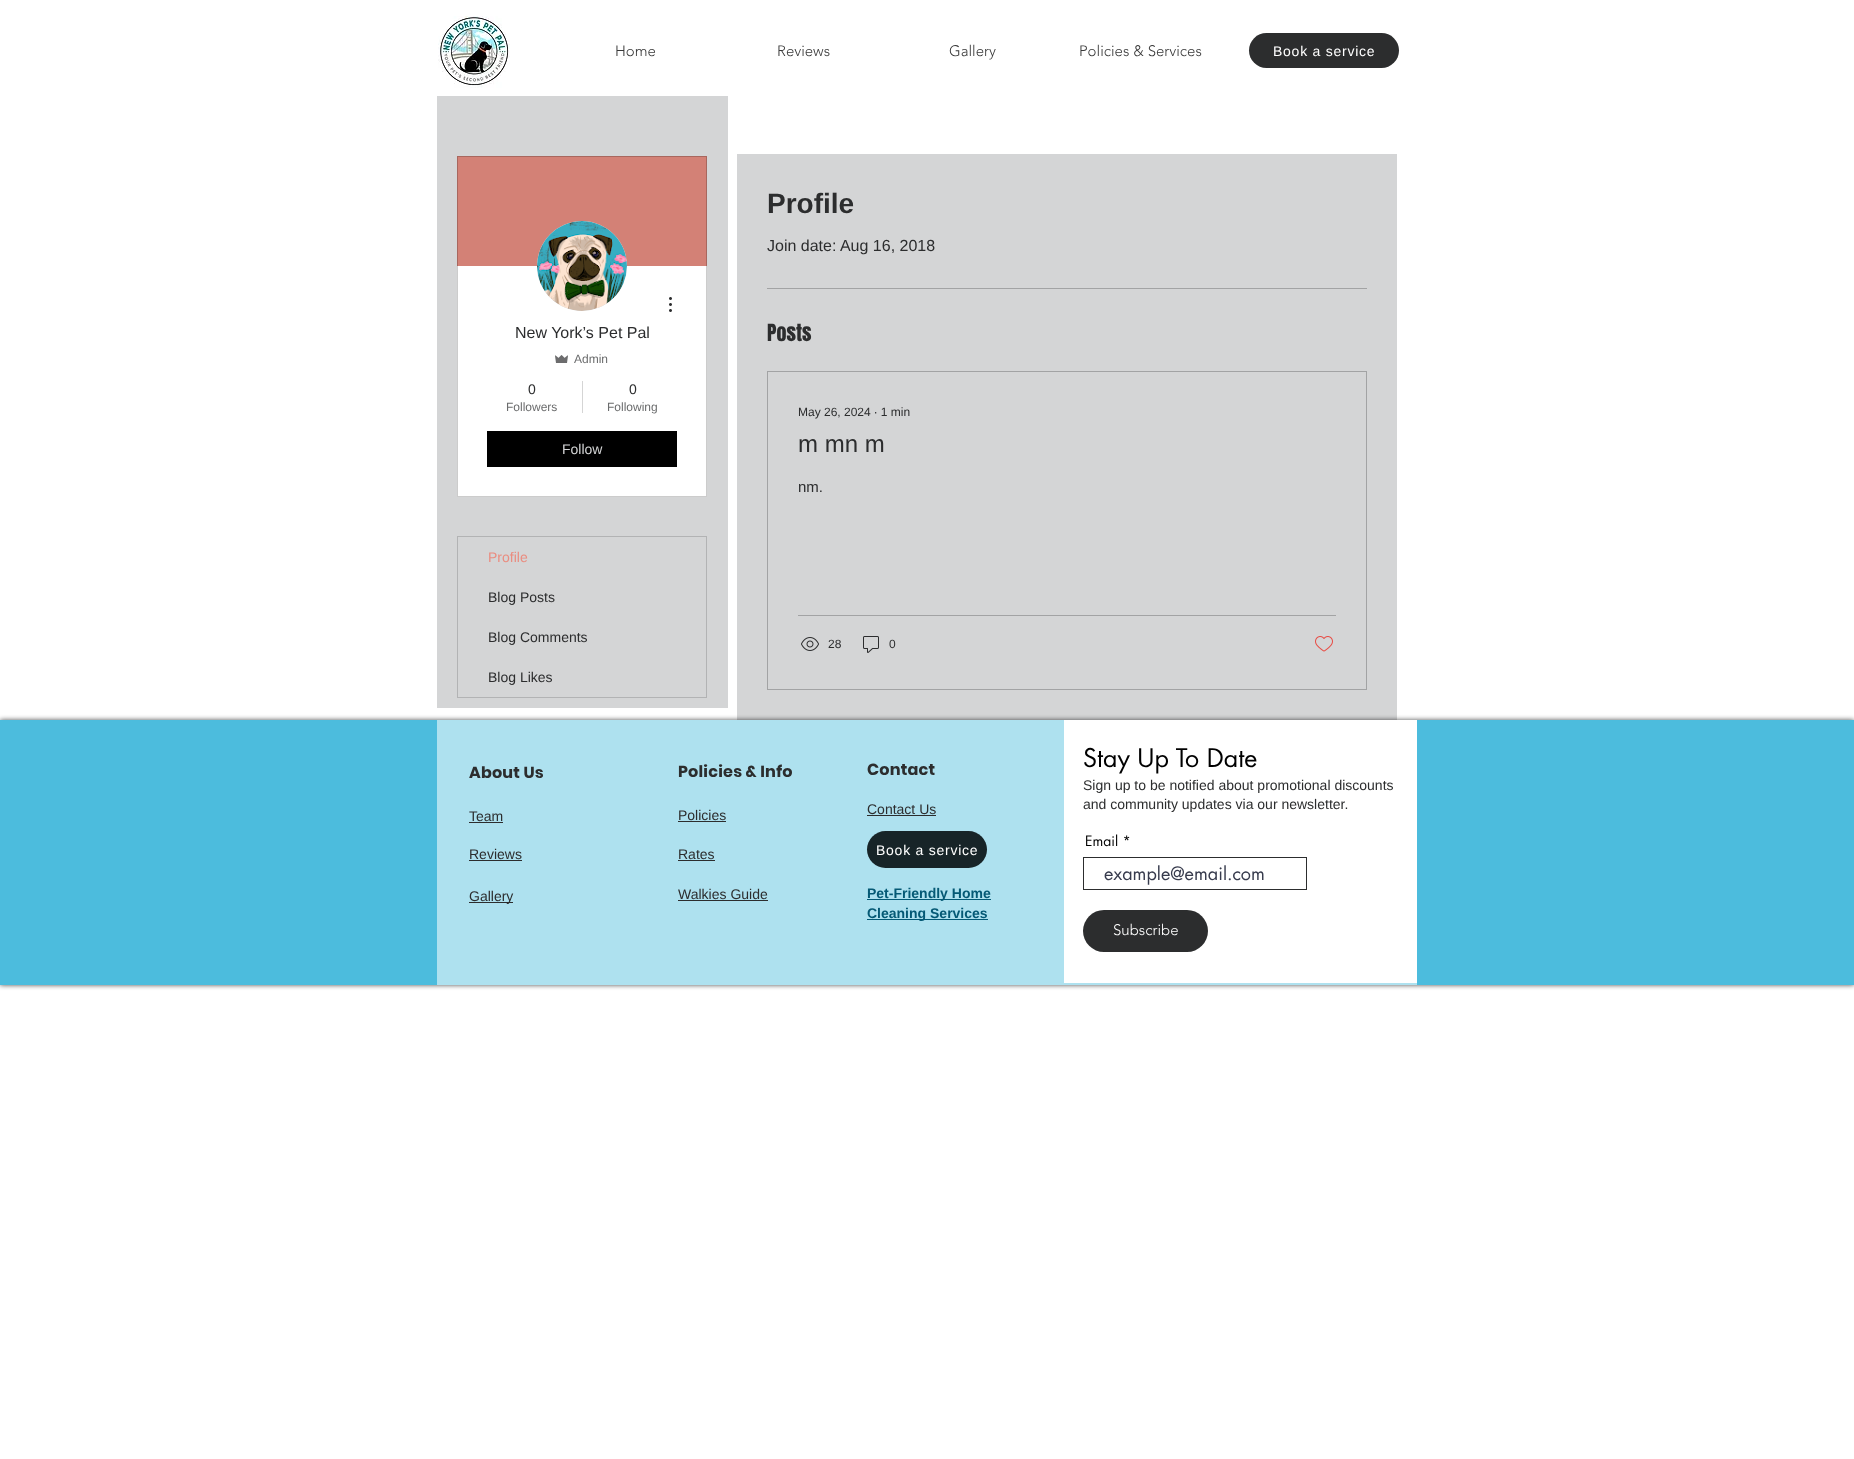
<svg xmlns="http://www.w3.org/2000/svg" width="1854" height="1459">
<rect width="100%" height="100%" fill="#fff"/>
<image x="438" y="16" width="72" height="72" href="media/1.png"/>
<text x="615" y="56" style="font-family:'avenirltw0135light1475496';font-size:15px;font-weight:300;fill:#383838">Home</text>
<text x="777" y="56" style="font-family:'avenirltw0135light1475496';font-size:15px;font-weight:300;fill:#383838">Reviews</text>
<text x="949" y="56" style="font-family:'avenirltw0135light1475496';font-size:15px;font-weight:300;fill:#383838">Gallery</text>
<text x="1079" y="56" style="font-family:'avenirltw0135light1475496';font-size:15px;font-weight:300;fill:#383838">Policies &amp; Services</text>
<rect x="1249" y="33" width="150" height="35" rx="17.5" fill="#2c2d2e"/>
<text x="1273" y="56" style="font-family:Liberation Sans;font-size:14px;letter-spacing:0.75px;fill:#fff">Book a service</text>
<rect x="437" y="96" width="291" height="612" fill="#d4d5d6"/>
<rect x="457" y="266" width="250" height="231" fill="#fff"/>
<rect x="457" y="156" width="250" height="110" fill="#d38176"/>
<rect x="457.5" y="156.5" width="249" height="340" fill="none" stroke="#00000033"/>
<circle cx="582" cy="266" r="45" fill="#d8d8d8"/>
<image x="537" y="221" width="90" height="90" href="media/2.png"/>
<image x="669" y="297" width="3" height="15" href="media/3.png"/>
<text x="515" y="338" style="font-family:Liberation Sans;font-size:16px;fill:#2c2d2e">New York’s Pet Pal</text>
<image x="555" y="355" width="13" height="8" href="media/4.png"/>
<text x="574" y="363" style="font-family:Liberation Sans;font-size:12px;fill:#6b6c6d">Admin</text>
<text x="528" y="394" style="font-family:Liberation Sans;font-size:14px;fill:#2c2d2e">0</text>
<text x="506" y="411" style="font-family:Liberation Sans;font-size:12px;fill:#6b6c6d">Followers</text>
<rect x="582" y="381" width="1" height="32" fill="#d5d5d5"/>
<text x="629" y="394" style="font-family:Liberation Sans;font-size:14px;fill:#2c2d2e">0</text>
<text x="607" y="411" style="font-family:Liberation Sans;font-size:12px;fill:#6b6c6d">Following</text>
<rect x="487" y="431" width="190" height="36" fill="#000"/>
<text x="562" y="454" style="font-family:Liberation Sans;font-size:14px;fill:#d4d5d6">Follow</text>
<rect x="457.5" y="536.5" width="249" height="161" fill="none" stroke="#b2b3b4"/>
<text x="488" y="562" style="font-family:Liberation Sans;font-size:14px;fill:#ea8d80">Profile</text>
<text x="488" y="602" style="font-family:Liberation Sans;font-size:14px;fill:#2c2d2e">Blog Posts</text>
<text x="488" y="642" style="font-family:Liberation Sans;font-size:14px;fill:#2c2d2e">Blog Comments</text>
<text x="488" y="682" style="font-family:Liberation Sans;font-size:14px;fill:#2c2d2e">Blog Likes</text>
<rect x="737" y="154" width="660" height="566" fill="#d4d5d6"/>
<text x="767" y="213" style="font-family:Liberation Sans;font-size:28px;font-weight:bold;fill:#2c2d2e">Profile</text>
<text x="767" y="251" style="font-family:Liberation Sans;font-size:16px;fill:#2c2d2e">Join date: Aug 16, 2018</text>
<rect x="767" y="288" width="600" height="1" fill="#a2a3a4"/>
<text x="767" y="341" style="font-family:Anton;font-size:20px;fill:#2c2d2e">Posts</text>
<rect x="767.5" y="371.5" width="599" height="318" fill="none" stroke="#a2a3a4"/>
<text x="798" y="416" style="font-family:Liberation Sans;font-size:12px;fill:#2c2d2e">May 26, 2024 ∙ 1 min</text>
<text x="798" y="452" style="font-family:Liberation Sans;font-size:24px;fill:#2c2d2e">m mn m</text>
<text x="798" y="492" style="font-family:Liberation Sans;font-size:15px;fill:#2c2d2e">nm.</text>
<rect x="798" y="615" width="538" height="1" fill="#a2a3a4"/>
<image x="801" y="637" width="18" height="14" href="media/5.png"/>
<text x="828" y="648" style="font-family:Liberation Sans;font-size:12px;fill:#2c2d2e">28</text>
<image x="863" y="636" width="16" height="17" href="media/6.png"/>
<text x="889" y="648" style="font-family:Liberation Sans;font-size:12px;fill:#2c2d2e">0</text>
<image x="1315" y="636" width="18" height="16" href="media/7.png"/>
<rect y="720" width="1854" height="265" fill="#000000b3" filter="blur(2.5px)"/>
<rect y="720" width="1854" height="265" fill="#4cbcdd"/>
<rect x="437" y="720" width="980" height="265" fill="#aee1ef"/>
<text x="469" y="778" style="font-family:Poppins;font-size:16px;font-weight:bold;letter-spacing:0.2px;fill:#2c2d2e">About Us</text>
<text x="469" y="821" style="font-family:Liberation Sans;font-size:14px;fill:#2c2d2e">Team</text>
<rect x="469" y="822" width="34" height="1" fill="#2c2d2e"/>
<text x="469" y="859" style="font-family:Liberation Sans;font-size:14px;fill:#2c2d2e">Reviews</text>
<rect x="469" y="860" width="53" height="1" fill="#2c2d2e"/>
<text x="678" y="859" style="font-family:Liberation Sans;font-size:14px;fill:#2c2d2e">Rates</text>
<rect x="678" y="860" width="37" height="1" fill="#2c2d2e"/>
<rect x="469" y="902" width="44" height="1" fill="#2c2d2e"/>
<text x="469" y="901" style="font-family:Liberation Sans;font-size:14px;fill:#2c2d2e">Gallery</text>
<text x="678" y="777" style="font-family:Poppins;font-size:16px;font-weight:bold;letter-spacing:0.2px;fill:#2c2d2e">Policies &amp; Info</text>
<text x="678" y="820" style="font-family:Liberation Sans;font-size:14px;fill:#2c2d2e">Policies</text>
<rect x="678" y="821" width="48" height="1" fill="#2c2d2e"/>
<text x="678" y="899" style="font-family:Liberation Sans;font-size:14px;fill:#2c2d2e">Walkies Guide</text>
<rect x="678" y="900" width="90" height="1" fill="#2c2d2e"/>
<text x="867" y="775" style="font-family:Poppins;font-size:16px;font-weight:bold;letter-spacing:0.2px;fill:#2c2d2e">Contact</text>
<text x="867" y="814" style="font-family:Liberation Sans;font-size:14px;fill:#2c2d2e">Contact Us</text>
<rect x="867" y="815" width="69" height="1" fill="#2c2d2e"/>
<rect x="867" y="831" width="120" height="37" rx="18.5" fill="#172428"/>
<text x="876" y="855" style="font-family:Liberation Sans;font-size:14px;letter-spacing:0.75px;fill:#fff">Book a service</text>
<rect x="867" y="899" width="124" height="1" fill="#055975"/>
<text x="867" y="898" style="font-family:Liberation Sans;font-size:14px;font-weight:bold;fill:#055975">Pet-Friendly Home</text>
<rect x="867" y="919" width="121" height="1" fill="#055975"/>
<text x="867" y="918" style="font-family:Liberation Sans;font-size:14px;font-weight:bold;fill:#055975">Cleaning Services</text>
<rect x="1064" y="720" width="353" height="263" fill="#fff"/>
<text x="1083" y="767" style="font-family:futura;font-size:25px;fill:#000">Stay Up To Date</text>
<text x="1083" y="790" style="font-family:Liberation Sans;font-size:14px;fill:#2c2d2e">Sign up to be notified about promotional discounts</text>
<text x="1083" y="809" style="font-family:Liberation Sans;font-size:14px;fill:#2c2d2e">and community updates via our newsletter.</text>
<text x="1085" y="846" style="font-family:futura;font-size:14px;fill:#000">Email *</text>
<rect x="1083.5" y="857.5" width="223" height="32" fill="none" stroke="#2c2d2e"/>
<text x="1104" y="880" style="font-family:futura;font-size:18px;fill:#373b4d">example@email.com</text>
<rect x="1083" y="910" width="125" height="42" rx="21" fill="#2c2d2e"/>
<text x="1113" y="935" style="font-family:'avenirltw0135light1475496';font-size:15px;font-weight:300;fill:#fff">Subscribe</text>
</svg>
